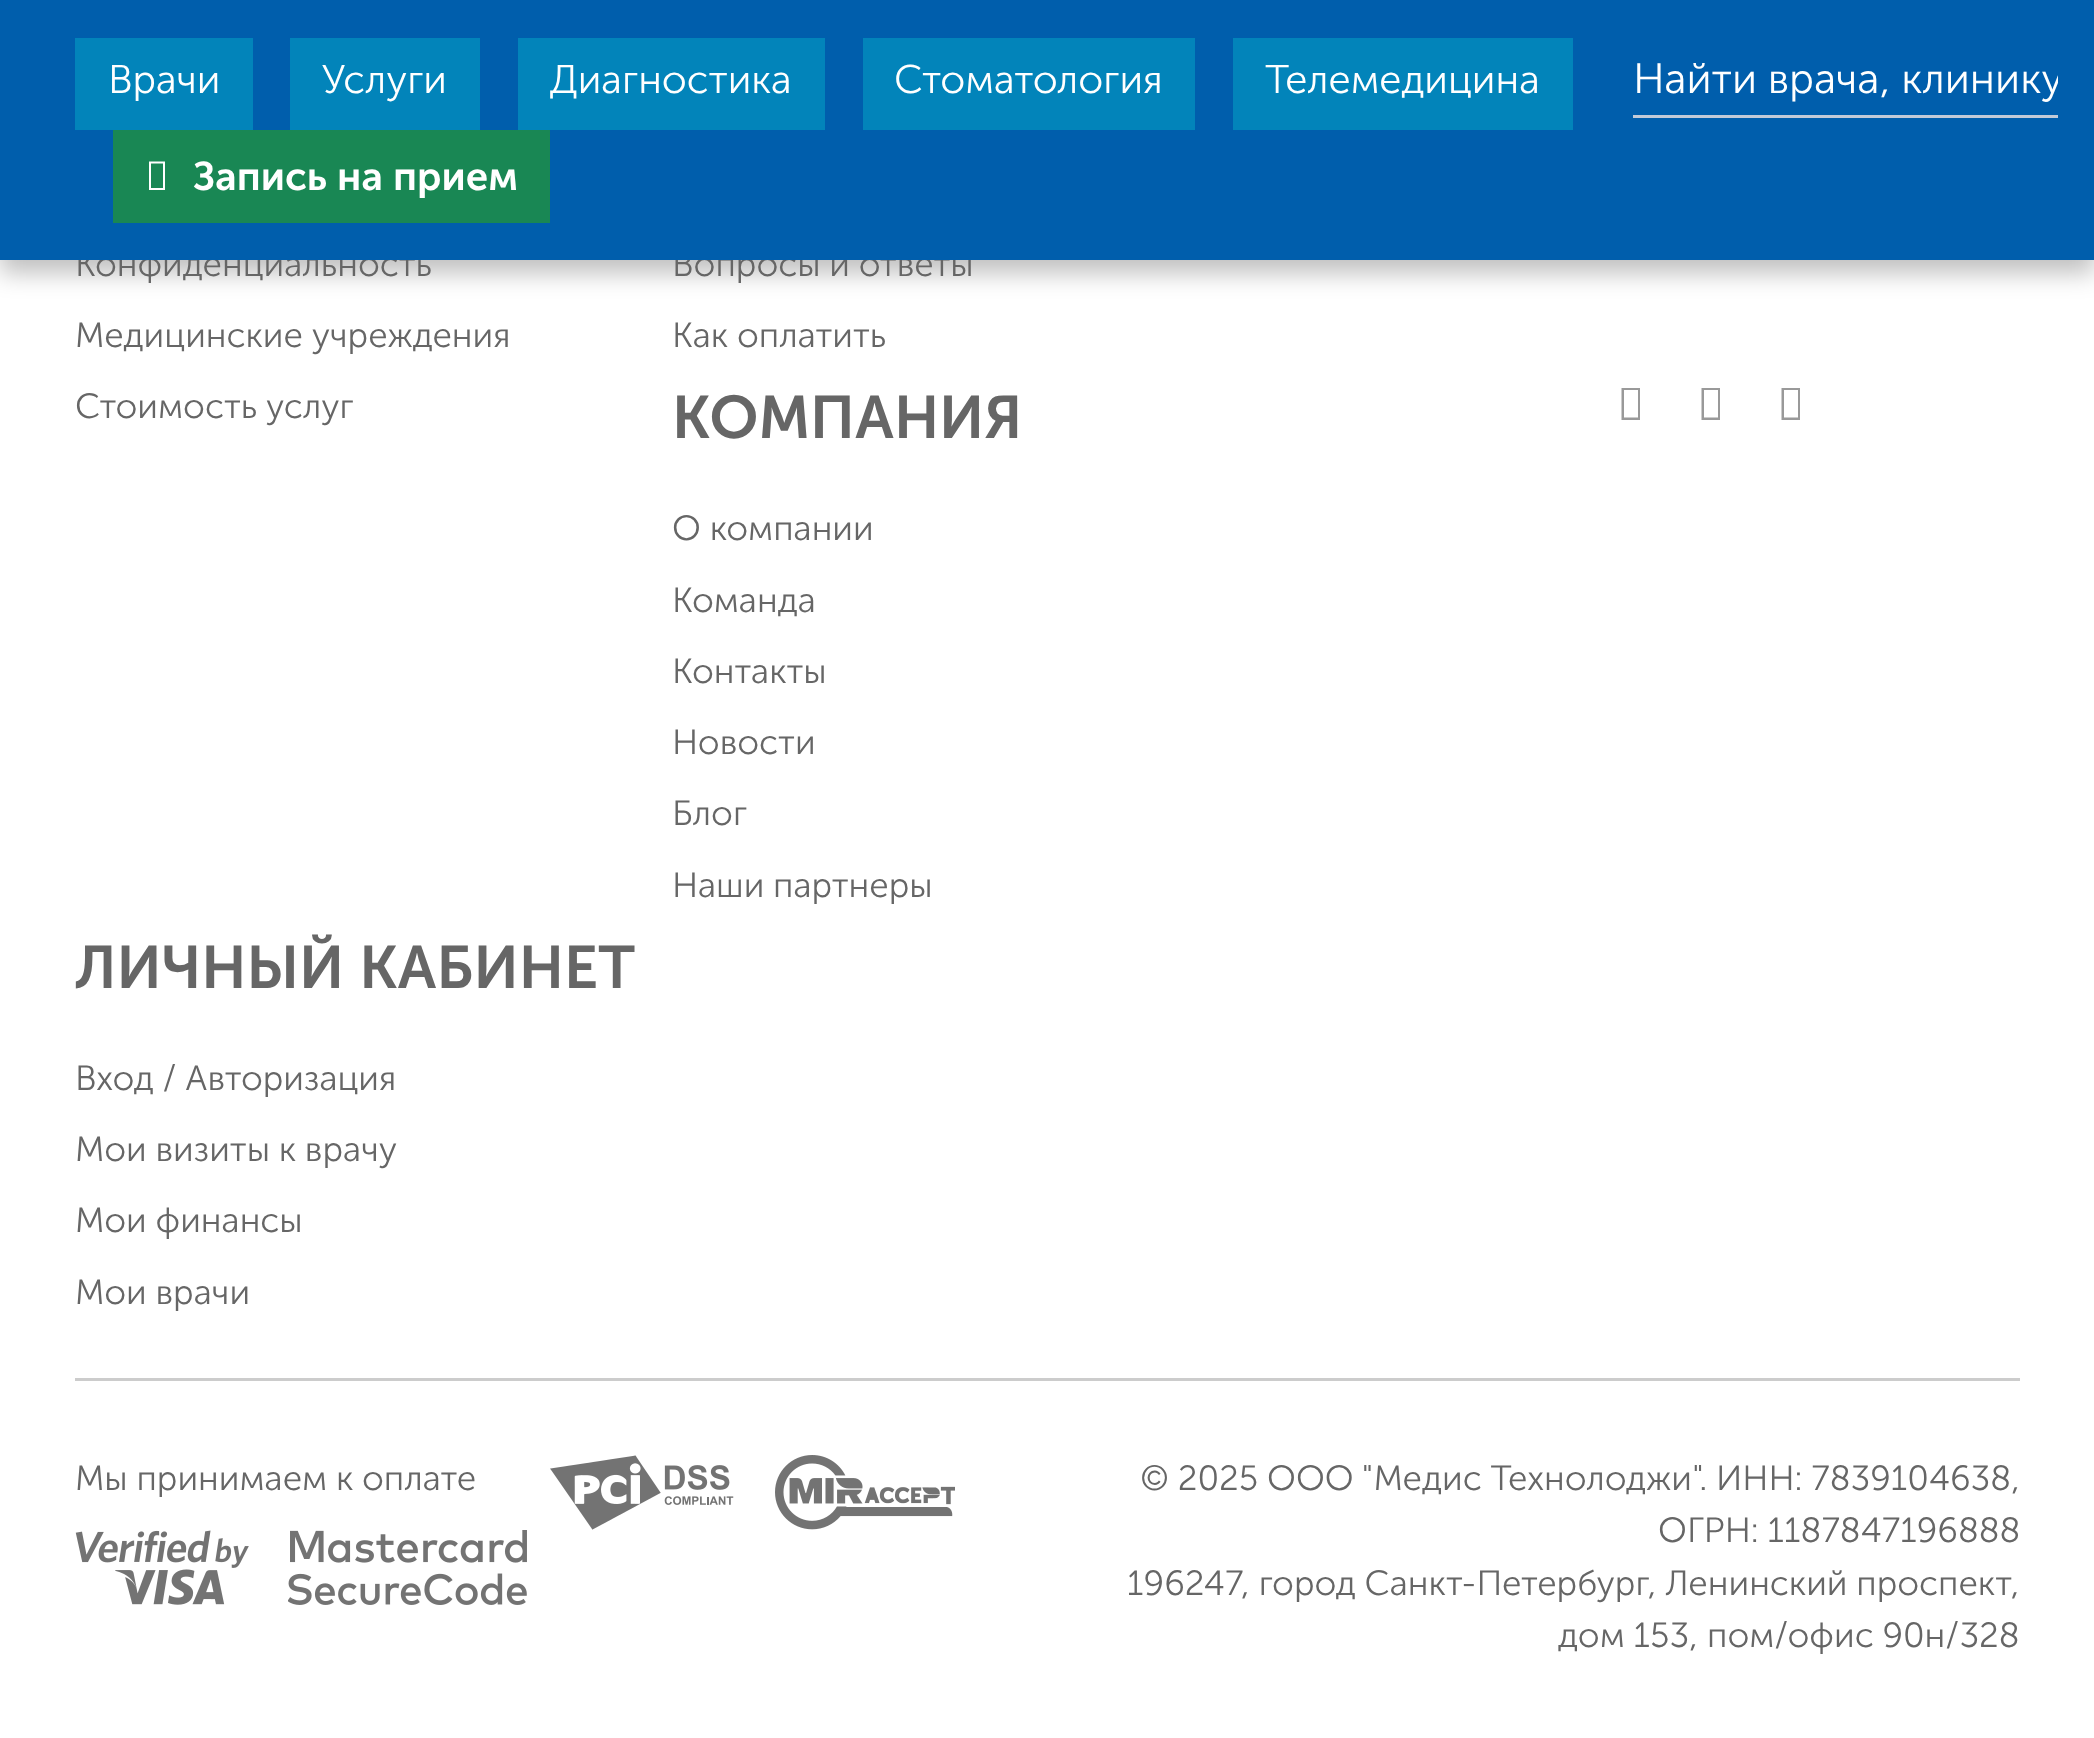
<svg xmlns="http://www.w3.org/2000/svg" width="2094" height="1738">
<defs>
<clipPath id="clip1"><rect x="1633" y="58" width="425" height="50"/></clipPath>
</defs>
<rect width="100%" height="100%" fill="#fff"/>
<rect y="13" width="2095" height="260" fill="#00000040" filter="blur(12.5px)"/>
<text x="75" y="276" style="font-family:'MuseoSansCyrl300';font-size:35px;fill:#666">Конфиденциальность</text>
<text x="672" y="276" style="font-family:'MuseoSansCyrl300';font-size:35px;fill:#666">Вопросы и ответы</text>
<rect width="2094" height="260" fill="#005eac"/>
<rect x="75" y="38" width="178" height="92" fill="#0284ba"/>
<text x="108" y="93" style="font-family:'MuseoSansCyrl300';font-size:40px;fill:#fff">Врачи</text>
<rect x="290" y="38" width="190" height="92" fill="#0284ba"/>
<text x="322" y="93" style="font-family:'MuseoSansCyrl300';font-size:40px;fill:#fff">Услуги</text>
<rect x="518" y="38" width="307" height="92" fill="#0284ba"/>
<text x="550" y="93" style="font-family:'MuseoSansCyrl300';font-size:40px;fill:#fff">Диагностика</text>
<rect x="863" y="38" width="332" height="92" fill="#0284ba"/>
<text x="894" y="93" style="font-family:'MuseoSansCyrl300';font-size:40px;fill:#fff">Стоматология</text>
<rect x="1233" y="38" width="340" height="92" fill="#0284ba"/>
<text x="1265" y="93" style="font-family:'MuseoSansCyrl300';font-size:40px;fill:#fff">Телемедицина</text>
<rect x="1633" y="115" width="425" height="3" fill="#c2cad8"/>
<g clip-path="url(#clip1)">
<text x="1633" y="93" style="font-family:'MuseoSansCyrl300';font-size:42.5px;fill:#fff">Найти врача, клинику</text>
</g>
<rect x="113" y="130" width="437" height="93" fill="#198754"/>
<path d="M149 190v-28.5h16v28.5zm2-2h12v-24.5h-12z" fill="#fff"/>
<text x="193" y="190" style="font-family:'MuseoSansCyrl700';font-size:40px;fill:#fff">Запись на прием</text>
<text x="75" y="347" style="font-family:'MuseoSansCyrl300';font-size:35px;fill:#666">Медицинские учреждения</text>
<text x="75" y="418" style="font-family:'MuseoSansCyrl300';font-size:35px;fill:#666">Стоимость услуг</text>
<text x="672" y="347" style="font-family:'MuseoSansCyrl300';font-size:35px;fill:#666">Как оплатить</text>
<text x="672" y="438" style="font-family:'MuseoSansCyrl700';font-size:60px;fill:#666">КОМПАНИЯ</text>
<text x="672" y="540" style="font-family:'MuseoSansCyrl300';font-size:35px;fill:#666">О компании</text>
<text x="672" y="612" style="font-family:'MuseoSansCyrl300';font-size:35px;fill:#666">Команда</text>
<text x="672" y="683" style="font-family:'MuseoSansCyrl300';font-size:35px;fill:#666">Контакты</text>
<text x="672" y="754" style="font-family:'MuseoSansCyrl300';font-size:35px;fill:#666">Новости</text>
<text x="672" y="825" style="font-family:'MuseoSansCyrl300';font-size:35px;fill:#666">Блог</text>
<text x="672" y="897" style="font-family:'MuseoSansCyrl300';font-size:35px;fill:#666">Наши партнеры</text>
<text x="75" y="988" style="font-family:'MuseoSansCyrl700';font-size:60px;fill:#666">ЛИЧНЫЙ КАБИНЕТ</text>
<text x="75" y="1090" style="font-family:'MuseoSansCyrl300';font-size:35px;fill:#666">Вход / Авторизация</text>
<text x="75" y="1161" style="font-family:'MuseoSansCyrl300';font-size:35px;fill:#666">Мои визиты к врачу</text>
<text x="75" y="1232" style="font-family:'MuseoSansCyrl300';font-size:35px;fill:#666">Мои финансы</text>
<text x="75" y="1304" style="font-family:'MuseoSansCyrl300';font-size:35px;fill:#666">Мои врачи</text>
<path d="M1621.5 420v-32h18.5v32zm2.5-2.5h14v-27.5h-14z" fill="#999"/>
<path d="M1701.5 420v-32h18.5v32zm2.5-2.5h14v-27.5h-14z" fill="#999"/>
<path d="M1781.5 420v-32h18.5v32zm2.5-2.5h14v-27.5h-14z" fill="#999"/>
<rect x="75" y="1378" width="1945" height="3" fill="#ccc"/>
<text x="75" y="1490" style="font-family:'MuseoSansCyrl300';font-size:35px;fill:#666">Мы принимаем к оплате</text>
<image x="550" y="1455" width="184" height="75" href="media/1.png"/>
<image x="775" y="1455" width="180" height="75" href="media/2.png"/>
<image x="75" y="1530" width="174" height="75" href="media/3.png"/>
<image x="288" y="1530" width="239" height="75" href="media/4.png"/>
<text x="1140" y="1490" style="font-family:'MuseoSansCyrl300';font-size:35px;fill:#666">© 2025 ООО "Медис Технолоджи". ИНН: 7839104638,</text>
<text x="1658" y="1542" style="font-family:'MuseoSansCyrl300';font-size:35px;fill:#666">ОГРН: 1187847196888</text>
<text x="1127" y="1595" style="font-family:'MuseoSansCyrl300';font-size:35px;fill:#666">196247, город Санкт-Петербург, Ленинский проспект,</text>
<text x="1558" y="1647" style="font-family:'MuseoSansCyrl300';font-size:35px;fill:#666">дом 153, пом/офис 90н/328</text>
</svg>
